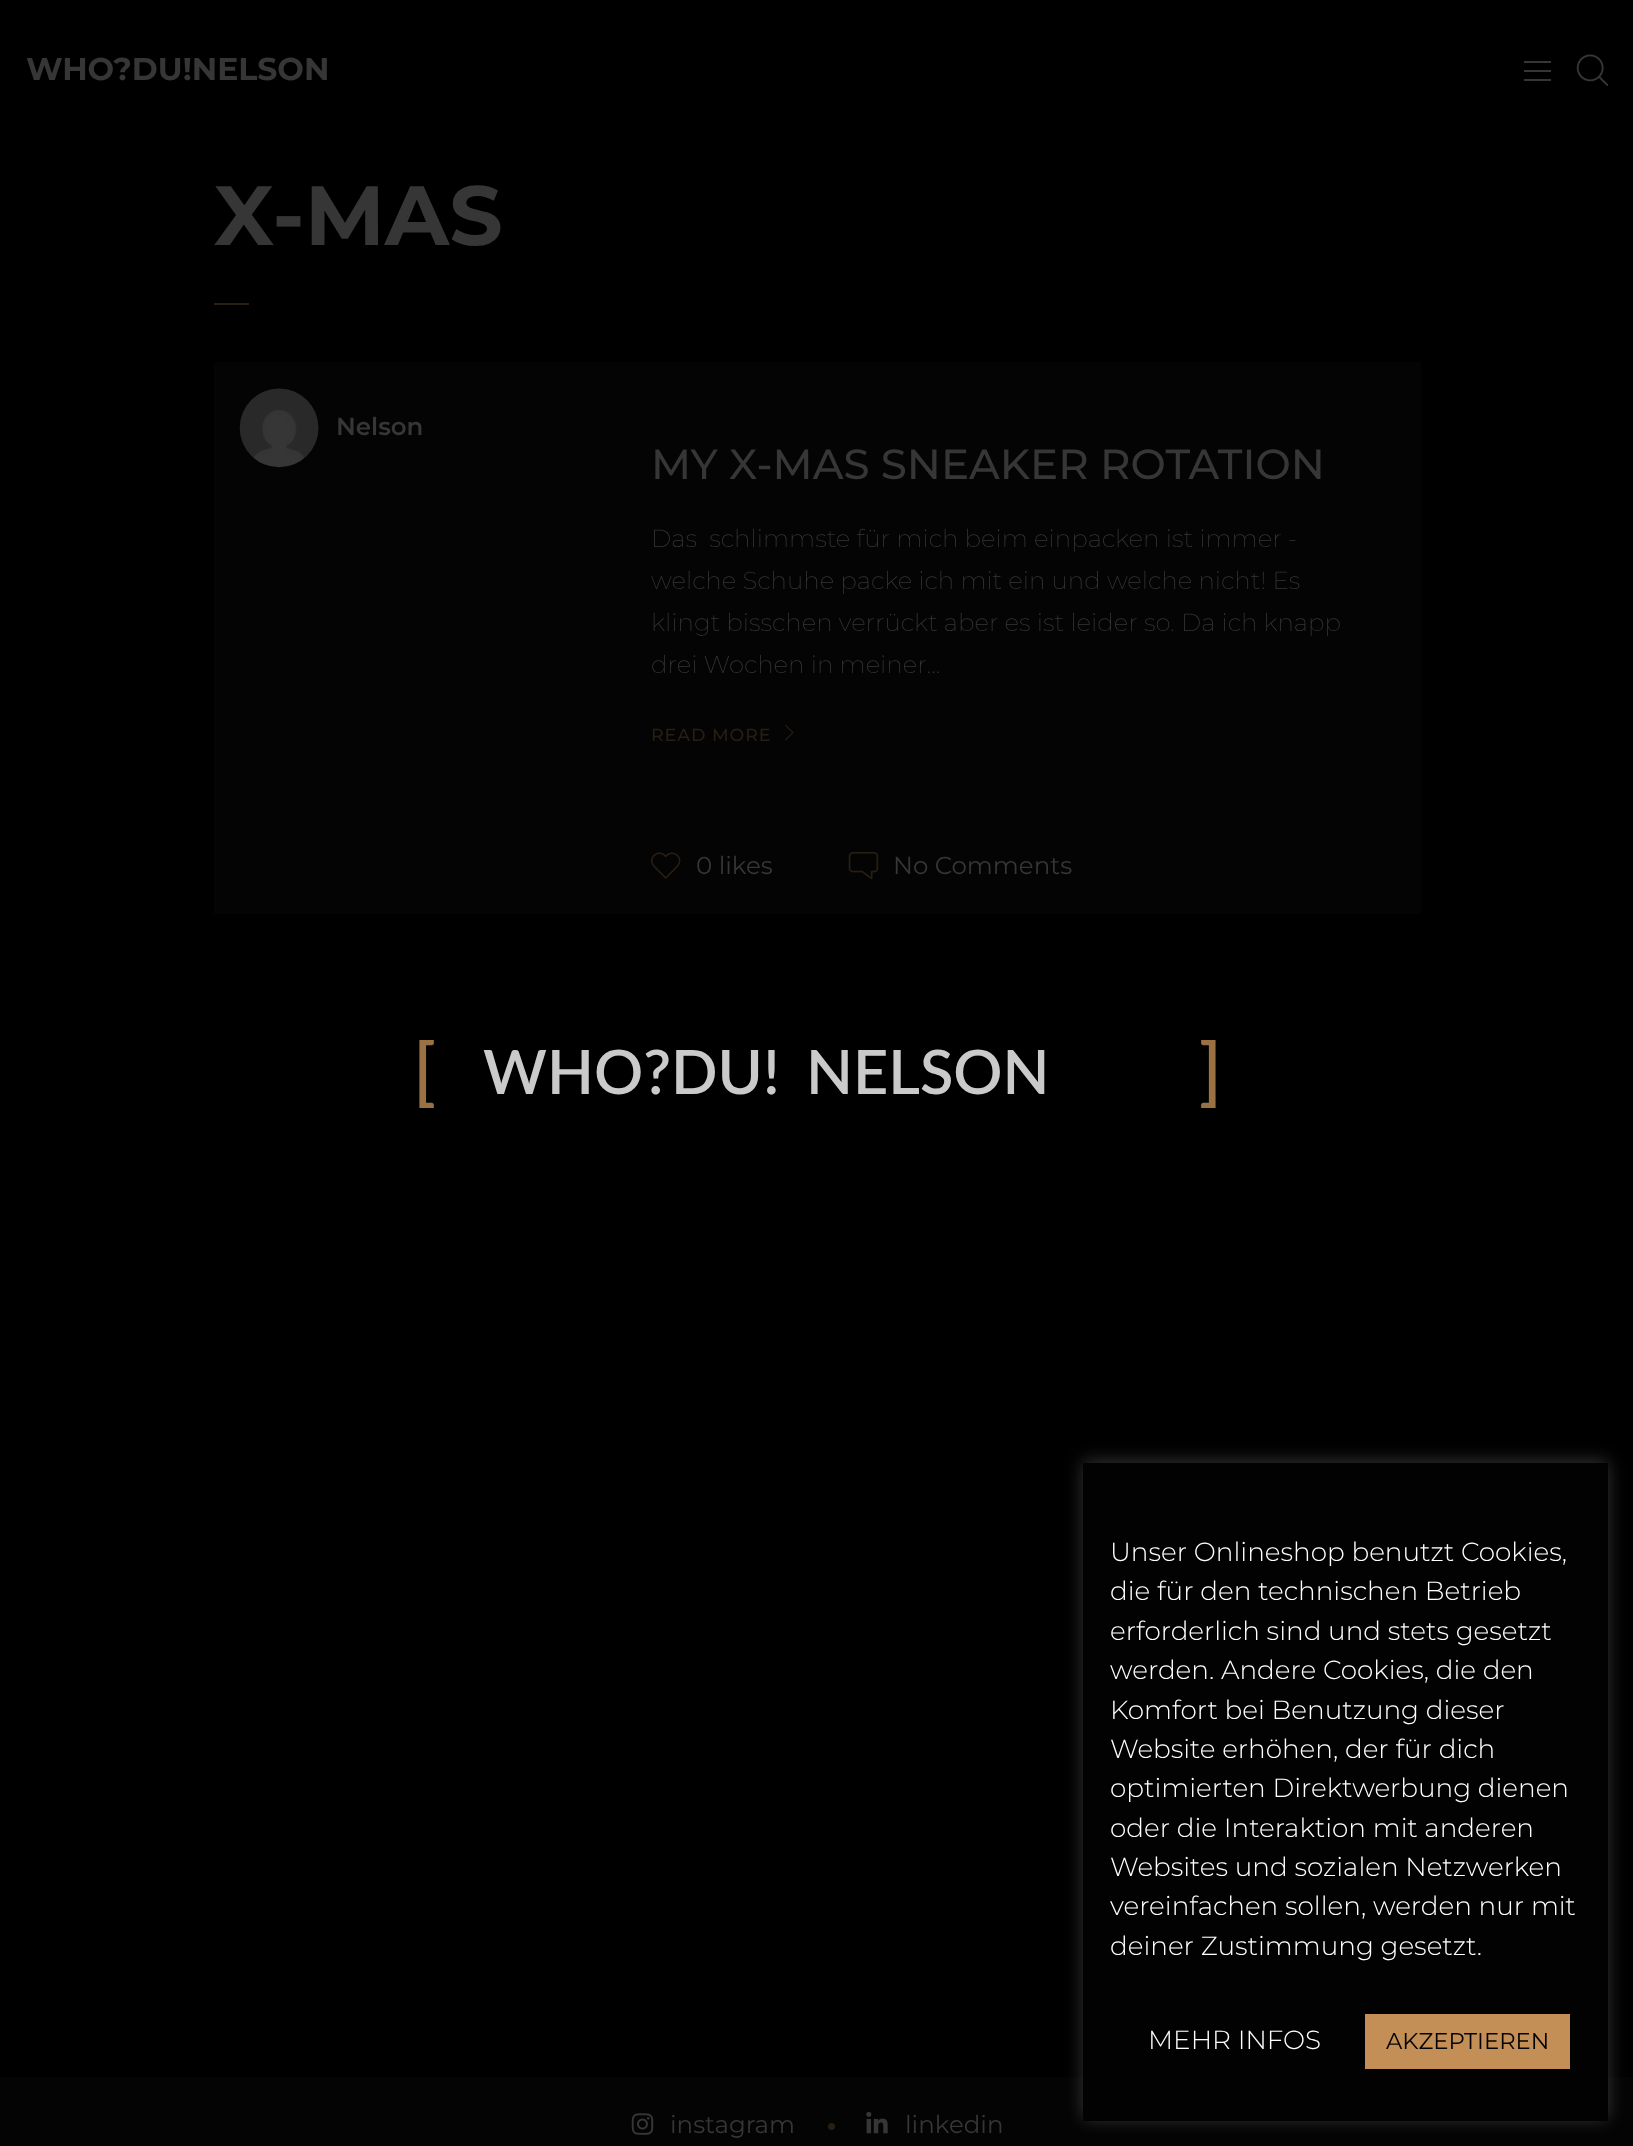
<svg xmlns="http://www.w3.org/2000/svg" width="1633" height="2146">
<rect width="100%" height="100%" fill="#000"/>
<text x="26" y="80" style="font-family:Montserrat;font-size:31.5px;font-weight:bold;fill:#363636">WHO?DU!NELSON</text>
<rect x="1524" y="61" width="27" height="2" fill="#363636"/>
<rect x="1524" y="70" width="27" height="2" fill="#363636"/>
<rect x="1524" y="79" width="27" height="2" fill="#363636"/>
<image x="1576" y="54" width="33" height="32" href="media/1.png"/>
<text x="214" y="245" style="font-family:Montserrat;font-size:84px;font-weight:bold;fill:#363636">X-MAS</text>
<rect x="214" y="303" width="35" height="2" fill="#291e12"/>
<rect x="214" y="362" width="1207" height="552" fill="#040404"/>
<image x="239" y="388" width="80" height="80" href="media/2.png"/>
<text x="336" y="435" style="font-family:Montserrat;font-size:24.5px;font-weight:600;fill:#363636">Nelson</text>
<text x="651" y="479" style="font-family:Montserrat;font-size:42px;font-weight:500;fill:#363636">MY X-MAS SNEAKER ROTATION</text>
<text x="651" y="547" style="font-family:Montserrat;font-size:24.5px;font-weight:200;fill:#363636" xml:space="preserve">Das  schlimmste für mich beim einpacken ist immer -</text>
<text x="651" y="589" style="font-family:Montserrat;font-size:24.5px;font-weight:200;fill:#363636">welche Schuhe packe ich mit ein und welche nicht! Es</text>
<text x="651" y="631" style="font-family:Montserrat;font-size:24.5px;font-weight:200;fill:#363636">klingt bisschen verrückt aber es ist leider so. Da ich knapp</text>
<text x="651" y="673" style="font-family:Montserrat;font-size:24.5px;font-weight:200;fill:#363636">drei Wochen in meiner...</text>
<text x="651" y="741" style="font-family:Montserrat;font-size:17.5px;font-weight:500;letter-spacing:0.9px;fill:#291e12">READ MORE</text>
<image x="785" y="725" width="9" height="16" href="media/3.png"/>
<image x="651" y="852" width="30" height="27" href="media/4.png"/>
<text x="696" y="874" style="font-family:Montserrat;font-size:24.5px;fill:#363636">0 likes</text>
<image x="848" y="852" width="31" height="28" href="media/5.png"/>
<text x="893" y="874" style="font-family:Montserrat;font-size:24.5px;fill:#363636">No Comments</text>
<text x="413" y="1097" style="font-family:Lato;font-size:74px;font-weight:600;fill:#9b7144">[</text>
<text x="483" y="1094" style="font-family:Lato;font-size:61.25px;font-weight:600;fill:#cacaca">WHO?DU!</text>
<text x="806" y="1094" style="font-family:Lato;font-size:61.25px;font-weight:600;fill:#cacaca">NELSON</text>
<text x="1199" y="1097" style="font-family:Lato;font-size:74px;font-weight:600;fill:#9b7144">]</text>
<rect y="2077" width="1633" height="69" fill="#040404"/>
<image x="631" y="2113" width="23" height="22" href="media/6.png"/>
<text x="670" y="2133" style="font-family:Montserrat;font-size:24.5px;fill:#363636">instagram</text>
<circle cx="831.5" cy="2126.5" r="3.5" fill="#291e12"/>
<image x="866" y="2111" width="22" height="23" href="media/7.png"/>
<text x="905" y="2133" style="font-family:Montserrat;font-size:24.5px;fill:#363636">linkedin</text>
<rect x="1083" y="1461" width="525" height="658" fill="#acabab4d" filter="blur(9px)"/>
<rect x="1083" y="1463" width="525" height="658" fill="#020202"/>
<text x="1110" y="1561" style="font-family:Montserrat;font-size:26.25px;font-weight:300;fill:#fff">Unser Onlineshop benutzt Cookies,</text>
<text x="1110" y="1600" style="font-family:Montserrat;font-size:26.25px;font-weight:300;fill:#fff">die für den technischen Betrieb</text>
<text x="1110" y="1640" style="font-family:Montserrat;font-size:26.25px;font-weight:300;fill:#fff">erforderlich sind und stets gesetzt</text>
<text x="1110" y="1679" style="font-family:Montserrat;font-size:26.25px;font-weight:300;fill:#fff">werden. Andere Cookies, die den</text>
<text x="1110" y="1719" style="font-family:Montserrat;font-size:26.25px;font-weight:300;fill:#fff">Komfort bei Benutzung dieser</text>
<text x="1110" y="1758" style="font-family:Montserrat;font-size:26.25px;font-weight:300;fill:#fff">Website erhöhen, der für dich</text>
<text x="1110" y="1797" style="font-family:Montserrat;font-size:26.25px;font-weight:300;fill:#fff">optimierten Direktwerbung dienen</text>
<text x="1110" y="1837" style="font-family:Montserrat;font-size:26.25px;font-weight:300;fill:#fff">oder die Interaktion mit anderen</text>
<text x="1110" y="1876" style="font-family:Montserrat;font-size:26.25px;font-weight:300;fill:#fff">Websites und sozialen Netzwerken</text>
<text x="1110" y="1915" style="font-family:Montserrat;font-size:26.25px;font-weight:300;fill:#fff">vereinfachen sollen, werden nur mit</text>
<text x="1110" y="1955" style="font-family:Montserrat;font-size:26.25px;font-weight:300;fill:#fff">deiner Zustimmung gesetzt.</text>
<text x="1148" y="2049" style="font-family:Montserrat;font-size:26.25px;font-weight:300;fill:#fff">MEHR INFOS</text>
<rect x="1365" y="2014" width="205" height="55" fill="#c48f56"/>
<text x="1386" y="2049" style="font-family:Montserrat;font-size:22.75px;fill:#020202">AKZEPTIEREN</text>
</svg>
